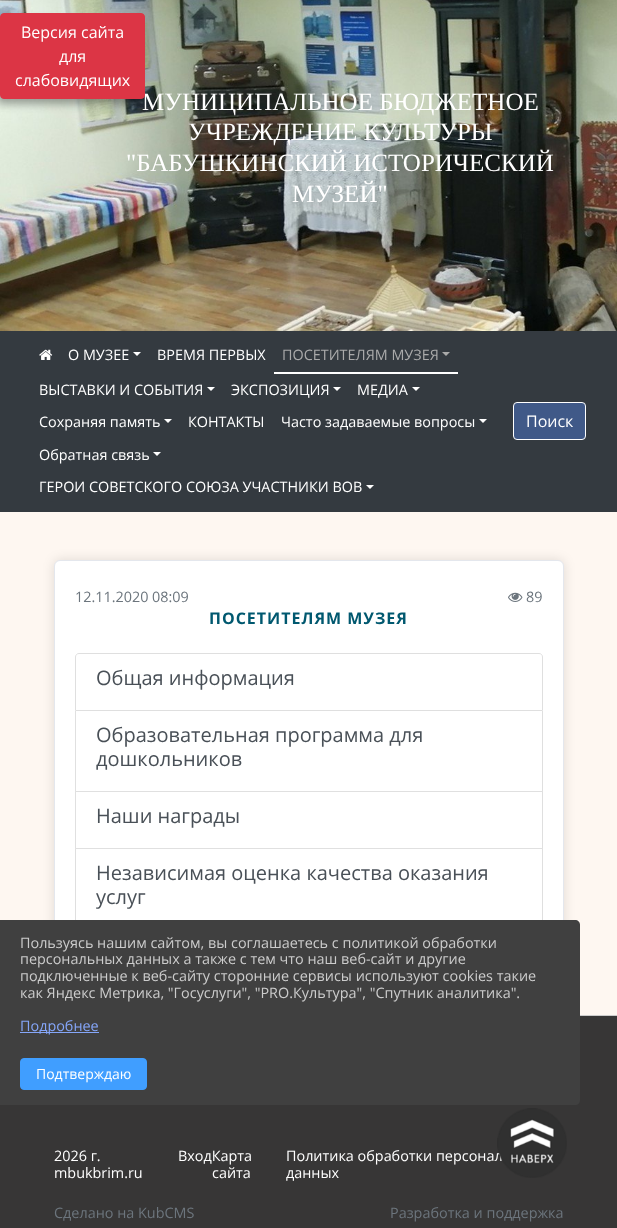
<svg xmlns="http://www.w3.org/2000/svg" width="617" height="1228">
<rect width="100%" height="100%" fill="#fef7f1"/>
<image x="0" y="0" width="617" height="331" href="media/1.png"/>
<rect x="-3" y="20" width="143" height="84" rx="3" fill="#00000059" filter="blur(4px)"/>
<text x="142" y="110" style="font-family:Liberation Serif;font-size:25px;fill:#fff">МУНИЦИПАЛЬНОЕ БЮДЖЕТНОЕ</text>
<rect x="0.5" y="13.5" width="144" height="85" rx="3.5" fill="#dc3545" stroke="#dc3545"/>
<text x="21" y="38" style="font-family:Open Sans;font-size:16px;fill:#fff">Версия сайта</text>
<text x="59" y="62" style="font-family:Open Sans;font-size:16px;fill:#fff">для</text>
<text x="15" y="86" style="font-family:Open Sans;font-size:16px;fill:#fff">слабовидящих</text>
<text x="188" y="140" style="font-family:Liberation Serif;font-size:25px;fill:#fff">УЧРЕЖДЕНИЕ КУЛЬТУРЫ</text>
<text x="126" y="171" style="font-family:Liberation Serif;font-size:25px;fill:#fff">"БАБУШКИНСКИЙ ИСТОРИЧЕСКИЙ</text>
<text x="292" y="202" style="font-family:Liberation Serif;font-size:25px;fill:#fff">МУЗЕЙ"</text>
<rect y="331" width="617" height="181" fill="#343a40"/>
<image x="39" y="349" width="14" height="11" href="media/2.png"/>
<text x="68" y="360" style="font-family:Open Sans;font-size:14.4px;fill:#fff">О МУЗЕЕ</text>
<path d="M133 352h8l-4 4z" fill="#fff"/>
<text x="157" y="360" style="font-family:Open Sans;font-size:14.4px;fill:#fff">ВРЕМЯ ПЕРВЫХ</text>
<rect x="274" y="372" width="184" height="2" fill="#fff"/>
<text x="282" y="360" style="font-family:Open Sans;font-size:14.4px;fill:#aaa">ПОСЕТИТЕЛЯМ МУЗЕЯ</text>
<path d="M442 352h8l-4 4z" fill="#aaa"/>
<text x="39" y="395" style="font-family:Open Sans;font-size:14.4px;fill:#fff">ВЫСТАВКИ И СОБЫТИЯ</text>
<path d="M207 387h8l-4 4z" fill="#fff"/>
<text x="231" y="395" style="font-family:Open Sans;font-size:14.4px;fill:#fff">ЭКСПОЗИЦИЯ</text>
<path d="M333 387h8l-4 4z" fill="#fff"/>
<text x="357" y="395" style="font-family:Open Sans;font-size:14.4px;fill:#fff">МЕДИА</text>
<path d="M412 387h8l-4 4z" fill="#fff"/>
<text x="39" y="427" style="font-family:Open Sans;font-size:14.4px;fill:#fff">Сохраняя память</text>
<path d="M164 419h8l-4 4z" fill="#fff"/>
<text x="188" y="427" style="font-family:Open Sans;font-size:14.4px;fill:#fff">КОНТАКТЫ</text>
<text x="281" y="427" style="font-family:Open Sans;font-size:14.4px;fill:#fff">Часто задаваемые вопросы</text>
<path d="M479 419h8l-4 4z" fill="#fff"/>
<text x="39" y="460" style="font-family:Open Sans;font-size:14.4px;fill:#fff">Обратная связь</text>
<path d="M153 452h8l-4 4z" fill="#fff"/>
<text x="39" y="492" style="font-family:Open Sans;font-size:14.4px;fill:#fff">ГЕРОИ СОВЕТСКОГО СОЮЗА УЧАСТНИКИ ВОВ</text>
<path d="M366 485h8l-4 4z" fill="#fff"/>
<rect x="513.5" y="402.5" width="72" height="37" rx="3.5" fill="#405988" stroke="#fff"/>
<text x="526" y="427" style="font-family:Open Sans;font-size:16px;fill:#fff">Поиск</text>
<rect x="54" y="560" width="510" height="431" rx="6" fill="#0000001f" filter="blur(6px)"/>
<rect x="54.5" y="560.5" width="509" height="430" rx="5.5" fill="#fff" stroke="#e4e7ed"/>
<text x="75" y="602" style="font-family:Open Sans;font-size:14.4px;fill:#6c757d">12.11.2020 08:09</text>
<image x="508" y="592" width="15" height="10" href="media/3.png"/>
<text x="526" y="602" style="font-family:Open Sans;font-size:14.4px;fill:#6c757d">89</text>
<text x="209" y="624" style="font-family:Open Sans;font-size:16px;font-weight:bold;letter-spacing:1px;fill:#00586f">ПОСЕТИТЕЛЯМ МУЗЕЯ</text>
<path d="M79 653.5h460c2 0 3.5 1.5 3.5 3.5v53.5h-467v-53.5c0-2 1.5-3.5 3.5-3.5z" fill="none" stroke="#dfdfdf"/>
<text x="96" y="685" style="font-family:Open Sans;font-size:20px;fill:#495057">Общая информация</text>
<path d="M543 711v81l-1-1v-80z" fill="#dfdfdf"/>
<path d="M543 792h-468l1-1h466z" fill="#0000001f"/>
<path d="M75 792v-81h1v80z" fill="#0000001f"/>
<text x="96" y="742" style="font-family:Open Sans;font-size:20px;fill:#495057">Образовательная программа для</text>
<text x="96" y="766" style="font-family:Open Sans;font-size:20px;fill:#495057">дошкольников</text>
<path d="M543 792v57l-1-1v-56z" fill="#dfdfdf"/>
<path d="M543 849h-468l1-1h466z" fill="#0000001f"/>
<path d="M75 849v-57h1v56z" fill="#0000001f"/>
<text x="96" y="823" style="font-family:Open Sans;font-size:20px;fill:#495057">Наши награды</text>
<path d="M75 849h468v77c0 2-2 4-4 4h-460c-2 0-4-2-4-4zm1 0h466v77c0 2-1 3-3 3h-460c-2 0-3-1-3-3z" fill="#dfdfdf" fill-rule="evenodd"/>
<text x="96" y="880" style="font-family:Open Sans;font-size:20px;fill:#495057">Независимая оценка качества оказания</text>
<text x="96" y="904" style="font-family:Open Sans;font-size:20px;fill:#495057">услуг</text>
<rect y="1016" width="617" height="212" fill="#373636"/>
<rect x="580" y="1015" width="37" height="1" fill="#ccc"/>
<text x="286" y="1161" style="font-family:Open Sans;font-size:14.4px;fill:#fff">Политика обработки персонал</text>
<image x="497" y="1108" width="70" height="70" href="media/4.png"/>
<text x="54" y="1161" style="font-family:Open Sans;font-size:14.4px;fill:#fff">2026 г.</text>
<text x="54" y="1178" style="font-family:Open Sans;font-size:14.4px;fill:#fff">mbukbrim.ru</text>
<text x="178" y="1161" style="font-family:Open Sans;font-size:14.4px;fill:#fff">ВходКарта</text>
<text x="286" y="1178" style="font-family:Open Sans;font-size:14.4px;fill:#fff">данных</text>
<text x="212" y="1178" style="font-family:Open Sans;font-size:14.4px;fill:#fff">сайта</text>
<text x="54" y="1218" style="font-family:Open Sans;font-size:14.4px;fill:#6c757d">Сделано на KubCMS</text>
<text x="390" y="1218" style="font-family:Open Sans;font-size:14.4px;fill:#6c757d">Разработка и поддержка</text>
<path d="M0 920h575c3 0 5 2 5 5v175c0 3-2 5-5 5h-575z" fill="#404040"/>
<text x="20" y="948" style="font-family:Open Sans;font-size:14.4px;fill:#ccc">Пользуясь нашим сайтом, вы соглашаетесь с политикой обработки</text>
<text x="20" y="964" style="font-family:Open Sans;font-size:14.4px;fill:#ccc">персональных данных а также с тем что наш веб-сайт и другие</text>
<text x="20" y="981" style="font-family:Open Sans;font-size:14.4px;fill:#ccc">подключенные к веб-сайту сторонние сервисы используют cookies такие</text>
<text x="20" y="998" style="font-family:Open Sans;font-size:14.4px;fill:#ccc">как Яндекс Метрика, "Госуслуги", "PRO.Культура", "Спутник аналитика".</text>
<rect x="20" y="1032" width="79" height="1" fill="#85a6f9"/>
<text x="20" y="1031" style="font-family:Open Sans;font-size:14.4px;fill:#85a6f9">Подробнее</text>
<rect x="20.5" y="1058.5" width="126" height="31" rx="3.5" fill="#409eff" stroke="#409eff"/>
<text x="36" y="1079" style="font-family:Open Sans;font-size:14px;fill:#fff">Подтверждаю</text>
</svg>
